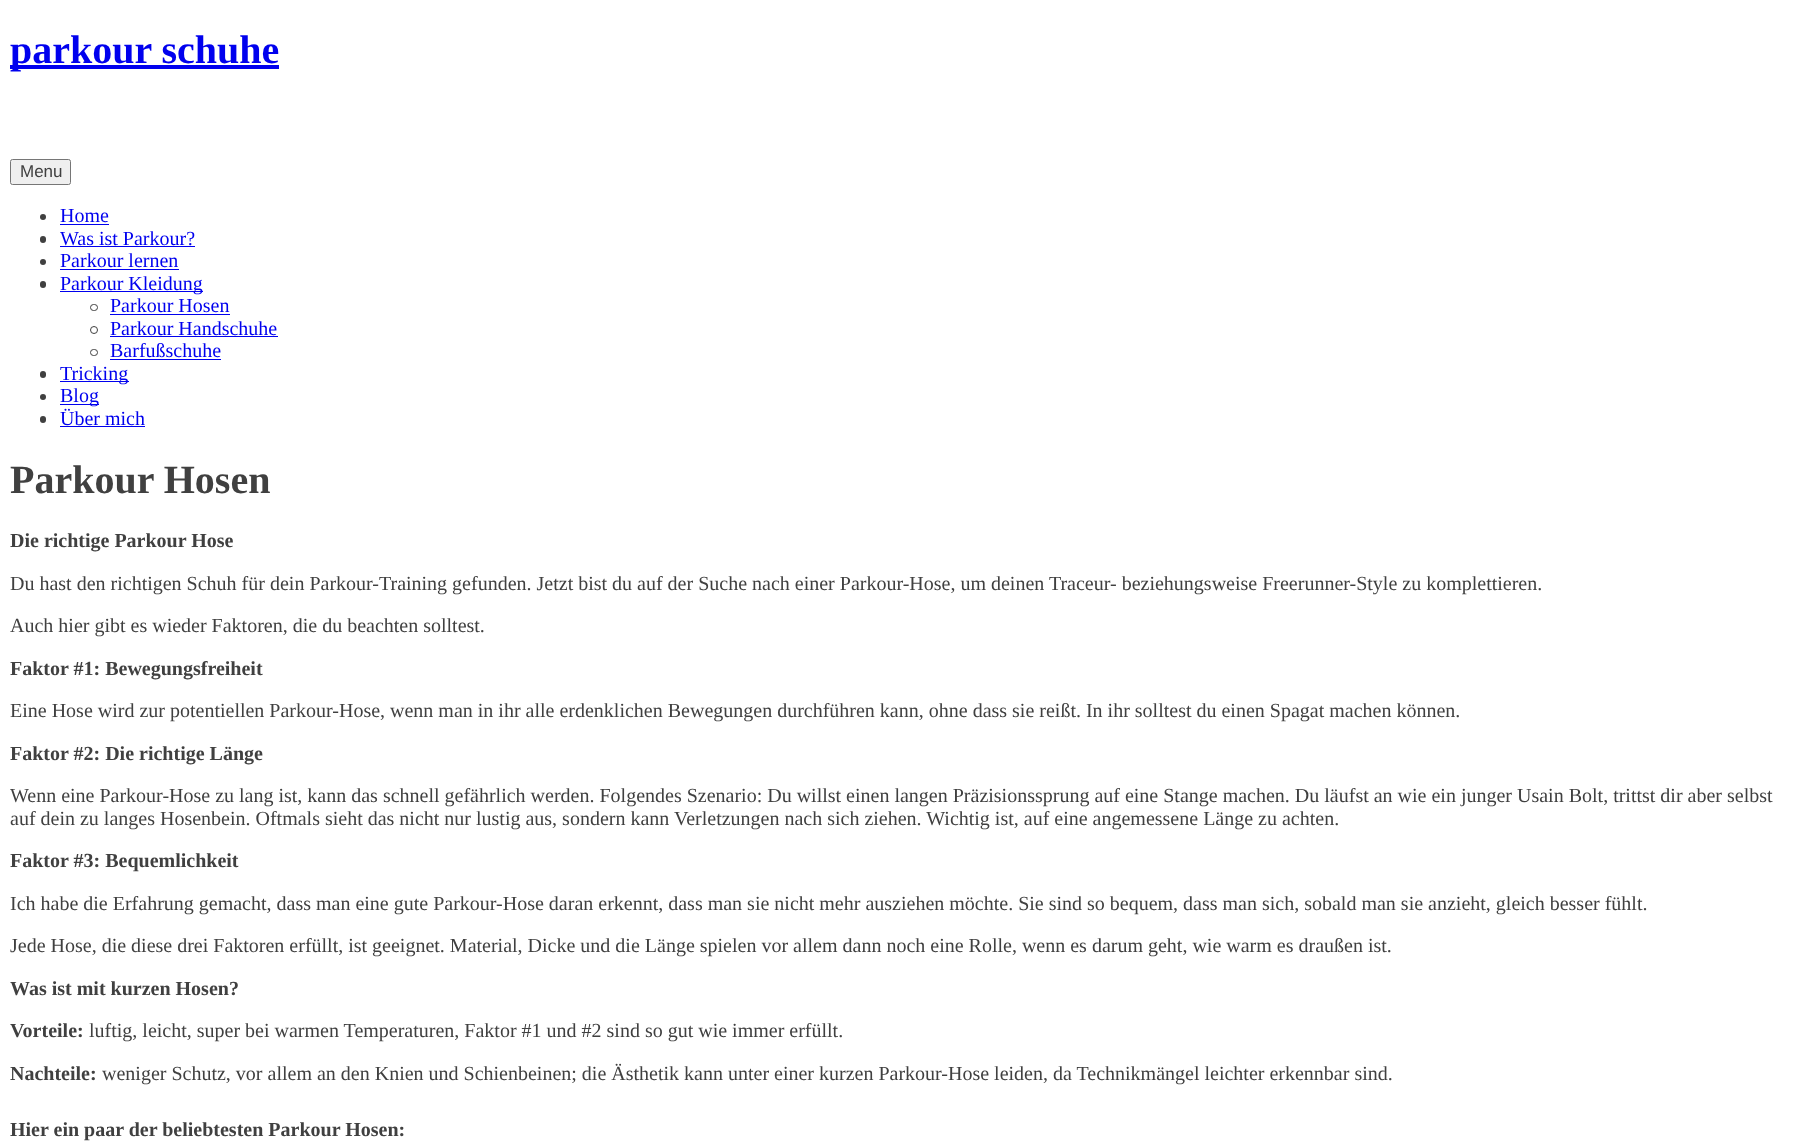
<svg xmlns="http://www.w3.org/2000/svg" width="1794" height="1148">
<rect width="100%" height="100%" fill="#fff"/>
<rect x="10" y="65" width="269" height="4" fill="#00e"/>
<text x="10" y="63" style="font-family:Liberation Serif;font-size:40px;font-weight:bold;fill:#00e">parkour schuhe</text>
<rect x="10.5" y="159.5" width="60" height="25" rx="2" fill="#efefef" stroke="#767676"/>
<text x="20" y="177" style="font-family:Liberation Sans;font-size:17px;fill:#404040">Menu</text>
<circle cx="43" cy="217" r="3" fill="#404040"/>
<text x="60" y="222" style="font-family:Liberation Serif;font-size:20px;fill:#00e">Home</text>
<rect x="60" y="224" width="49" height="1" fill="#00e"/>
<rect x="40" y="236" width="6" height="7" rx="3" fill="#404040"/>
<text x="60" y="245" style="font-family:Liberation Serif;font-size:20px;fill:#00e">Was ist Parkour?</text>
<rect x="60" y="246" width="135" height="1" fill="#00e"/>
<circle cx="43" cy="262" r="3" fill="#404040"/>
<text x="60" y="267" style="font-family:Liberation Serif;font-size:20px;fill:#00e">Parkour lernen</text>
<rect x="60" y="269" width="119" height="1" fill="#00e"/>
<rect x="40" y="281" width="6" height="7" rx="3" fill="#404040"/>
<rect x="60" y="291" width="143" height="1" fill="#00e"/>
<text x="60" y="290" style="font-family:Liberation Serif;font-size:20px;fill:#00e">Parkour Kleidung</text>
<rect x="90.5" y="304.5" width="7" height="6" rx="3" fill="none" stroke="#404040"/>
<text x="110" y="312" style="font-family:Liberation Serif;font-size:20px;fill:#00e">Parkour Hosen</text>
<rect x="110" y="314" width="120" height="1" fill="#00e"/>
<circle cx="94" cy="330" r="3.5" fill="none" stroke="#404040"/>
<text x="110" y="335" style="font-family:Liberation Serif;font-size:20px;fill:#00e">Parkour Handschuhe</text>
<rect x="110" y="336" width="168" height="1" fill="#00e"/>
<rect x="90.5" y="349.5" width="7" height="6" rx="3" fill="none" stroke="#404040"/>
<text x="110" y="357" style="font-family:Liberation Serif;font-size:20px;fill:#00e">Barfußschuhe</text>
<rect x="110" y="359" width="111" height="1" fill="#00e"/>
<rect x="40" y="371" width="6" height="7" rx="3" fill="#404040"/>
<rect x="60" y="381" width="69" height="1" fill="#00e"/>
<text x="60" y="380" style="font-family:Liberation Serif;font-size:20px;fill:#00e">Tricking</text>
<circle cx="43" cy="397" r="3" fill="#404040"/>
<rect x="60" y="404" width="39" height="1" fill="#00e"/>
<text x="60" y="402" style="font-family:Liberation Serif;font-size:20px;fill:#00e">Blog</text>
<rect x="40" y="416" width="6" height="7" rx="3" fill="#404040"/>
<text x="60" y="425" style="font-family:Liberation Serif;font-size:20px;fill:#00e">Über mich</text>
<rect x="60" y="426" width="85" height="1" fill="#00e"/>
<text x="10" y="493" style="font-family:Liberation Serif;font-size:40px;font-weight:bold;fill:#404040">Parkour Hosen</text>
<text x="10" y="547" style="font-family:Liberation Serif;font-size:20px;font-weight:bold;fill:#404040">Die richtige Parkour Hose</text>
<text x="10" y="590" style="font-family:Liberation Serif;font-size:20px;fill:#404040">Du hast den richtigen Schuh für dein Parkour-Training gefunden. Jetzt bist du auf der Suche nach einer Parkour-Hose, um deinen Traceur- beziehungsweise Freerunner-Style zu komplettieren.</text>
<text x="10" y="632" style="font-family:Liberation Serif;font-size:20px;fill:#404040">Auch hier gibt es wieder Faktoren, die du beachten solltest.</text>
<text x="10" y="675" style="font-family:Liberation Serif;font-size:20px;font-weight:bold;fill:#404040">Faktor #1: Bewegungsfreiheit</text>
<text x="10" y="717" style="font-family:Liberation Serif;font-size:20px;fill:#404040">Eine Hose wird zur potentiellen Parkour-Hose, wenn man in ihr alle erdenklichen Bewegungen durchführen kann, ohne dass sie reißt. In ihr solltest du einen Spagat machen können.</text>
<text x="10" y="760" style="font-family:Liberation Serif;font-size:20px;font-weight:bold;fill:#404040">Faktor #2: Die richtige Länge</text>
<text x="10" y="802" style="font-family:Liberation Serif;font-size:20px;fill:#404040">Wenn eine Parkour-Hose zu lang ist, kann das schnell gefährlich werden. Folgendes Szenario: Du willst einen langen Präzisionssprung auf eine Stange machen. Du läufst an wie ein junger Usain Bolt, trittst dir aber selbst</text>
<text x="10" y="825" style="font-family:Liberation Serif;font-size:20px;fill:#404040">auf dein zu langes Hosenbein. Oftmals sieht das nicht nur lustig aus, sondern kann Verletzungen nach sich ziehen. Wichtig ist, auf eine angemessene Länge zu achten.</text>
<text x="10" y="867" style="font-family:Liberation Serif;font-size:20px;font-weight:bold;fill:#404040">Faktor #3: Bequemlichkeit</text>
<text x="10" y="910" style="font-family:Liberation Serif;font-size:20px;fill:#404040">Ich habe die Erfahrung gemacht, dass man eine gute Parkour-Hose daran erkennt, dass man sie nicht mehr ausziehen möchte. Sie sind so bequem, dass man sich, sobald man sie anzieht, gleich besser fühlt.</text>
<text x="10" y="952" style="font-family:Liberation Serif;font-size:20px;fill:#404040">Jede Hose, die diese drei Faktoren erfüllt, ist geeignet. Material, Dicke und die Länge spielen vor allem dann noch eine Rolle, wenn es darum geht, wie warm es draußen ist.</text>
<text x="10" y="995" style="font-family:Liberation Serif;font-size:20px;font-weight:bold;fill:#404040">Was ist mit kurzen Hosen?</text>
<text x="10" y="1037" style="font-family:Liberation Serif;font-size:20px;font-weight:bold;fill:#404040">Vorteile:</text>
<text x="89" y="1037" style="font-family:Liberation Serif;font-size:20px;fill:#404040">luftig, leicht, super bei warmen Temperaturen, Faktor #1 und #2 sind so gut wie immer erfüllt.</text>
<text x="10" y="1080" style="font-family:Liberation Serif;font-size:20px;font-weight:bold;fill:#404040">Nachteile:</text>
<text x="102" y="1080" style="font-family:Liberation Serif;font-size:20px;fill:#404040">weniger Schutz, vor allem an den Knien und Schienbeinen; die Ästhetik kann unter einer kurzen Parkour-Hose leiden, da Technikmängel leichter erkennbar sind.</text>
<text x="10" y="1136" style="font-family:Liberation Serif;font-size:20px;font-weight:bold;fill:#404040">Hier ein paar der beliebtesten Parkour Hosen:</text>
</svg>
